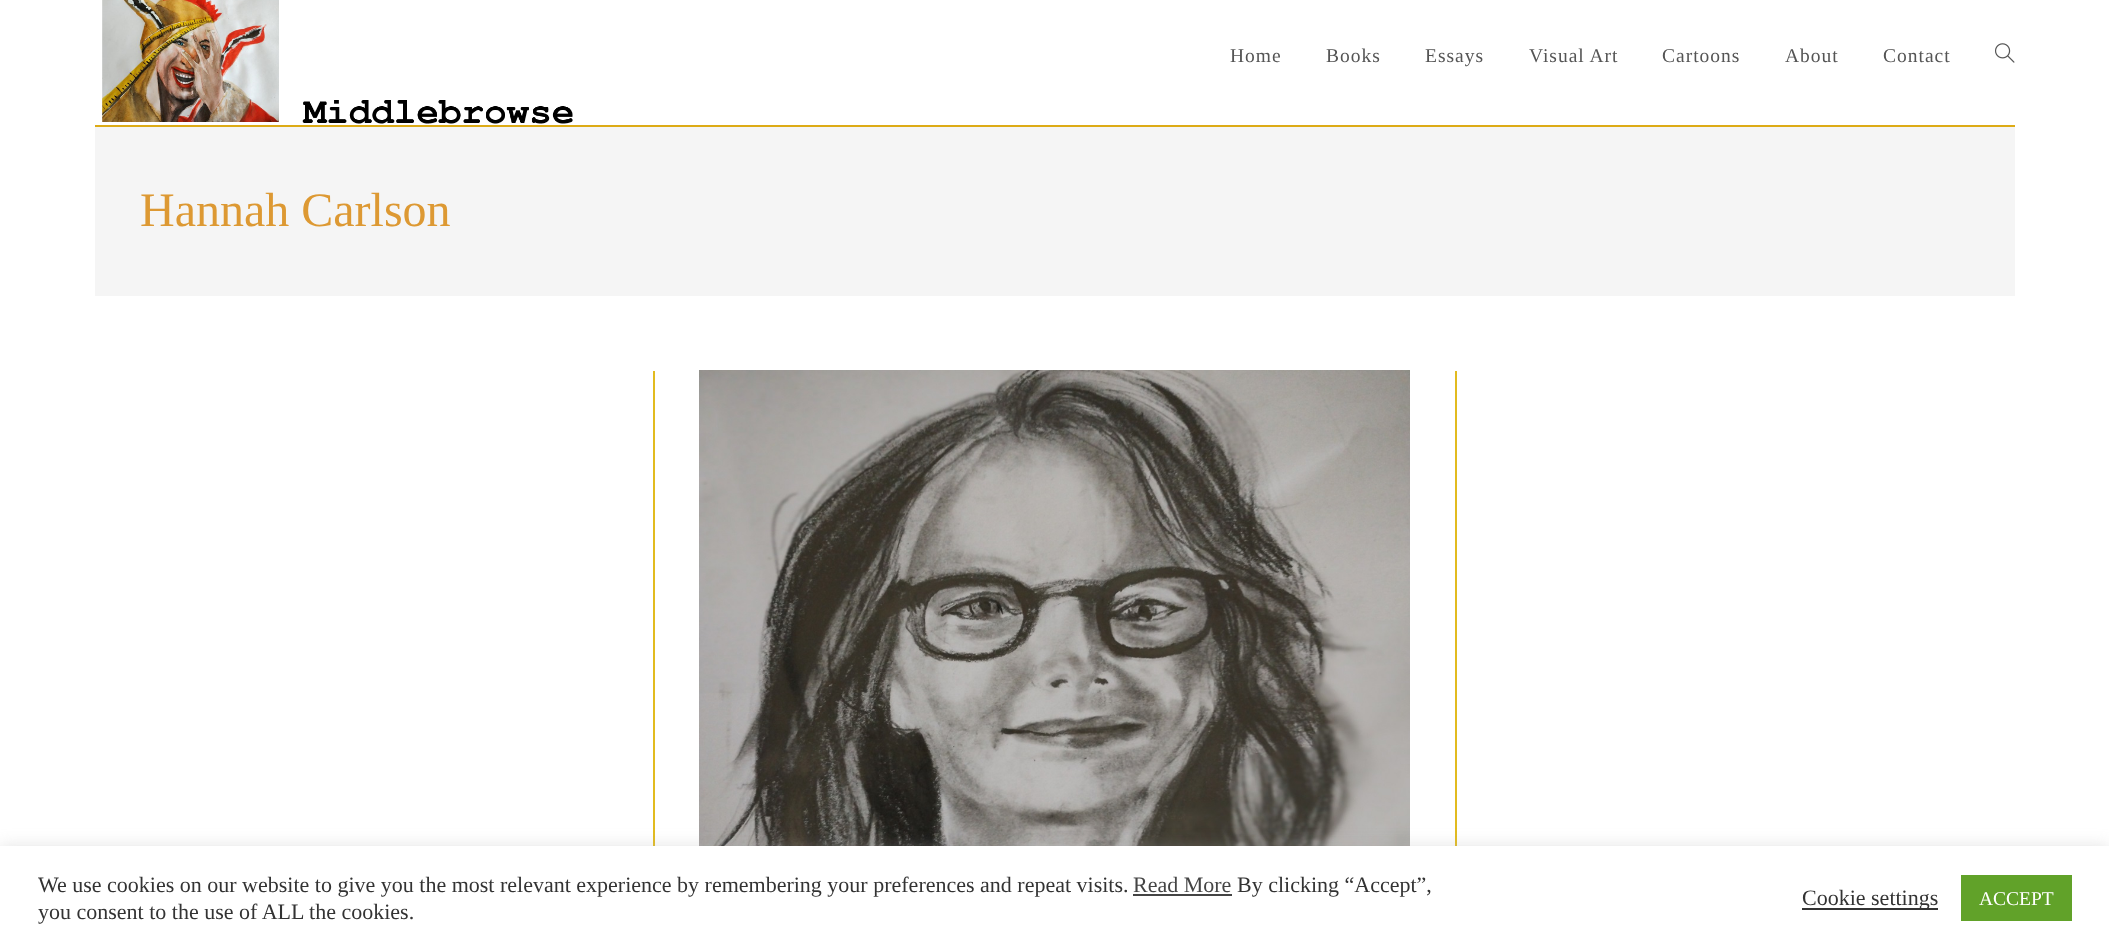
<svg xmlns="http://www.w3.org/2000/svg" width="2109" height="949">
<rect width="100%" height="100%" fill="#fff"/>
<rect x="95" y="125" width="1920" height="2" fill="#ddab16"/>
<image x="102" y="0" width="471" height="124" href="media/1.png"/>
<text x="1230" y="62" style="font-family:Liberation Serif;font-size:19.5px;letter-spacing:1px;fill:#555">Home</text>
<text x="1326" y="62" style="font-family:Liberation Serif;font-size:19.5px;letter-spacing:1px;fill:#555">Books</text>
<text x="1425" y="62" style="font-family:Liberation Serif;font-size:19.5px;letter-spacing:1px;fill:#555">Essays</text>
<text x="1529" y="62" style="font-family:Liberation Serif;font-size:19.5px;letter-spacing:1px;fill:#555">Visual Art</text>
<text x="1662" y="62" style="font-family:Liberation Serif;font-size:19.5px;letter-spacing:1px;fill:#555">Cartoons</text>
<text x="1785" y="62" style="font-family:Liberation Serif;font-size:19.5px;letter-spacing:1px;fill:#555">About</text>
<text x="1883" y="62" style="font-family:Liberation Serif;font-size:19.5px;letter-spacing:1px;fill:#555">Contact</text>
<image x="1995" y="43" width="20" height="20" href="media/2.png"/>
<rect x="95" y="127" width="1920" height="169" fill="#f5f5f5"/>
<text x="140" y="226" style="font-family:Liberation Serif;font-size:48px;fill:#d93">Hannah Carlson</text>
<rect x="1455" y="371" width="2" height="475" fill="#e2bb1f"/>
<rect x="653" y="371" width="2" height="475" fill="#e2bb1f"/>
<image x="699" y="370" width="711" height="476" href="media/3.png"/>
<rect y="845" width="2109" height="103" fill="#acabab4d" filter="blur(7.5px)"/>
<rect y="846" width="2109" height="103" fill="#fff"/>
<text x="38" y="892" style="font-family:Liberation Serif;font-size:22px;fill:#333">We use cookies on our website to give you the most relevant experience by remembering your preferences and repeat visits.</text>
<text x="1133" y="892" style="font-family:Liberation Serif;font-size:22px;fill:#444">Read More</text>
<rect x="1133" y="894" width="99" height="2" fill="#444"/>
<text x="1237" y="892" style="font-family:Liberation Serif;font-size:22px;fill:#333">By clicking “Accept”,</text>
<text x="38" y="919" style="font-family:Liberation Serif;font-size:22px;fill:#333">you consent to the use of ALL the cookies.</text>
<rect x="1802" y="908" width="136" height="2" fill="#333"/>
<text x="1802" y="905" style="font-family:Liberation Serif;font-size:22px;fill:#333">Cookie settings</text>
<rect x="1961" y="875" width="111" height="46" fill="#61a229"/>
<text x="1979" y="905" style="font-family:Liberation Serif;font-size:19.5px;fill:#fff">ACCEPT</text>
</svg>
